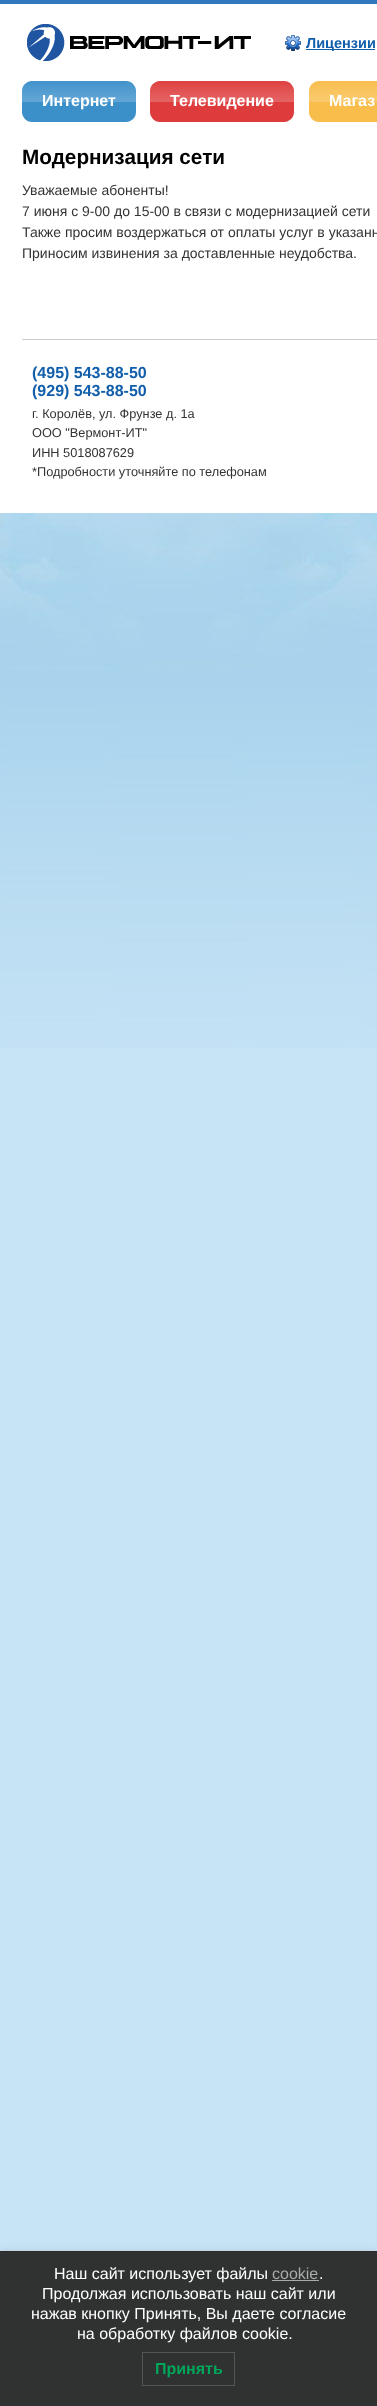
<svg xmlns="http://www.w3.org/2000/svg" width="377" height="2406">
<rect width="100%" height="100%" fill="#c7e4f6"/>
<image x="0" y="513" width="377" height="535" href="media/1.png"/>
<rect width="377" height="4" fill="#3077be"/>
<rect y="4" width="377" height="509" fill="#fff"/>
<image x="27" y="24" width="224" height="37" href="media/2.png"/>
<image x="285" y="35" width="16" height="16" href="media/3.png"/>
<rect x="306" y="49" width="69" height="1" fill="#115eab"/>
<text x="306" y="48" style="font-family:Liberation Sans;font-size:14.5px;font-weight:bold;fill:#115eab">Лицензии</text>
<rect x="22" y="81" width="114" height="41" fill="#3c90ca"/>
<image x="22" y="81" width="114" height="21" href="media/6.png"/>
<image x="22" y="81" width="9" height="10" href="media/4.png"/>
<image x="126" y="81" width="10" height="9" href="media/5.png"/>
<text x="42" y="106" style="font-family:Liberation Sans;font-size:16px;font-weight:bold;fill:#fff">Интернет</text>
<image x="22" y="113" width="10" height="9" href="media/7.png"/>
<image x="127" y="112" width="9" height="10" href="media/8.png"/>
<rect x="150" y="81" width="144" height="41" fill="#de3c3c"/>
<image x="150" y="81" width="144" height="21" href="media/11.png"/>
<image x="150" y="81" width="9" height="10" href="media/9.png"/>
<image x="284" y="81" width="10" height="9" href="media/10.png"/>
<text x="170" y="106" style="font-family:Liberation Sans;font-size:16px;font-weight:bold;fill:#fff">Телевидение</text>
<image x="150" y="113" width="10" height="9" href="media/12.png"/>
<image x="285" y="112" width="9" height="10" href="media/13.png"/>
<rect x="309" y="81" width="68" height="41" fill="#f8bd4a"/>
<image x="309" y="81" width="68" height="21" href="media/15.png"/>
<image x="309" y="81" width="9" height="10" href="media/14.png"/>
<text x="329" y="106" style="font-family:Liberation Sans;font-size:16px;font-weight:bold;fill:#fff">Магаз</text>
<image x="309" y="113" width="10" height="9" href="media/16.png"/>
<text x="22" y="164" style="font-family:Liberation Sans;font-size:20.75px;font-weight:bold;fill:#000">Модернизация сети</text>
<text x="22" y="195" style="font-family:Liberation Sans;font-size:14px;fill:#333">Уважаемые абоненты!</text>
<text x="22" y="216" style="font-family:Liberation Sans;font-size:14px;fill:#333">7 июня с 9-00 до 15-00 в связи с модернизацией сети</text>
<text x="22" y="237" style="font-family:Liberation Sans;font-size:14px;fill:#333">Также просим воздержаться от оплаты услуг в указанн</text>
<text x="22" y="258" style="font-family:Liberation Sans;font-size:14px;fill:#333">Приносим извинения за доставленные неудобства.</text>
<rect x="22" y="339" width="355" height="1" fill="#ccc"/>
<text x="32" y="378" style="font-family:Liberation Sans;font-size:16px;font-weight:bold;fill:#115eab">(495) 543-88-50</text>
<text x="32" y="396" style="font-family:Liberation Sans;font-size:16px;font-weight:bold;fill:#115eab">(929) 543-88-50</text>
<text x="32" y="418" style="font-family:Liberation Sans;font-size:12.75px;fill:#333">г. Королёв, ул. Фрунзе д. 1а</text>
<text x="32" y="437" style="font-family:Liberation Sans;font-size:12.75px;fill:#333">ООО "Вермонт-ИТ"</text>
<text x="32" y="457" style="font-family:Liberation Sans;font-size:12.75px;fill:#333">ИНН 5018087629</text>
<text x="32" y="476" style="font-family:Liberation Sans;font-size:12.75px;fill:#333">*Подробности уточняйте по телефонам</text>
<rect y="2251" width="377" height="155" fill="#0000001a" filter="blur(4px)"/>
<rect y="2252" width="377" height="154" fill="#303131"/>
<rect y="2251" width="377" height="1" fill="#2b2b2b"/>
<text x="54" y="2279" style="font-family:Liberation Sans;font-size:16px;fill:#fff">Наш сайт использует файлы</text>
<text x="272" y="2279" style="font-family:Liberation Sans;font-size:16px;fill:#aaa">cookie</text>
<text x="319" y="2279" style="font-family:Liberation Sans;font-size:16px;fill:#fff">.</text>
<rect x="272" y="2280" width="47" height="1" fill="#aaa"/>
<text x="42" y="2299" style="font-family:Liberation Sans;font-size:16px;fill:#fff">Продолжая использовать наш сайт или</text>
<text x="31" y="2319" style="font-family:Liberation Sans;font-size:16px;fill:#fff">нажав кнопку Принять, Вы даете согласие</text>
<text x="77" y="2339" style="font-family:Liberation Sans;font-size:16px;fill:#fff">на обработку файлов cookie.</text>
<rect x="142.5" y="2352.5" width="92" height="33" fill="none" stroke="#555"/>
<text x="155" y="2374" style="font-family:Liberation Sans;font-size:16px;font-weight:bold;fill:#00a65a">Принять</text>
</svg>
